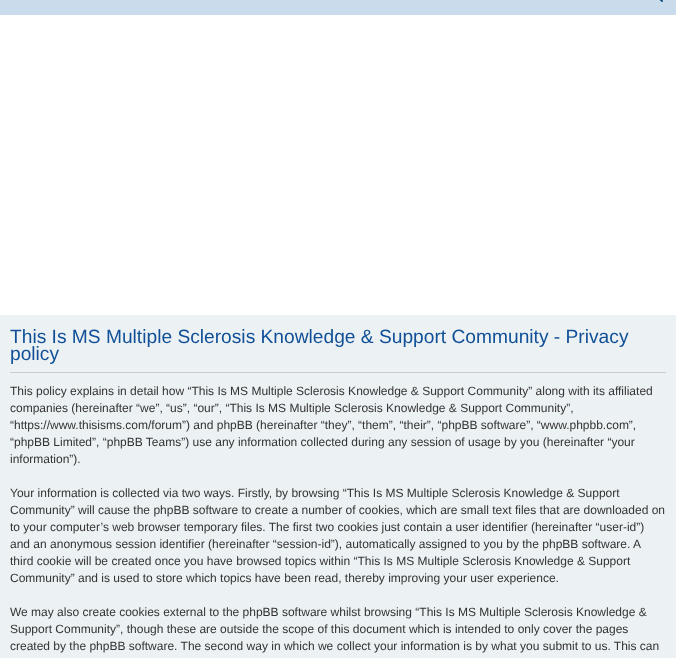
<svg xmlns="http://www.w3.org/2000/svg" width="676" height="658">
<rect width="100%" height="100%" fill="#fff"/>
<rect width="676" height="15" fill="#cadceb"/>
<image x="659" y="0" width="4" height="2" href="media/1.png"/>
<rect y="315" width="676" height="343" fill="#ecf1f3"/>
<rect x="10" y="372" width="656" height="1" fill="#ccc"/>
<text x="10" y="343" style="font-family:Liberation Sans;font-size:19.2px;fill:#115098">This Is MS Multiple Sclerosis Knowledge &amp; Support Community - Privacy</text>
<text x="10" y="360" style="font-family:Liberation Sans;font-size:19.2px;fill:#115098">policy</text>
<text x="10" y="395" style="font-family:Liberation Sans;font-size:12px;fill:#333">This policy explains in detail how “This Is MS Multiple Sclerosis Knowledge &amp; Support Community” along with its affiliated</text>
<text x="10" y="412" style="font-family:Liberation Sans;font-size:12px;fill:#333">companies (hereinafter “we”, “us”, “our”, “This Is MS Multiple Sclerosis Knowledge &amp; Support Community”,</text>
<text x="10" y="429" style="font-family:Liberation Sans;font-size:12px;fill:#333">“https://www.thisisms.com/forum”) and phpBB (hereinafter “they”, “them”, “their”, “phpBB software”, “www.phpbb.com”,</text>
<text x="10" y="446" style="font-family:Liberation Sans;font-size:12px;fill:#333">“phpBB Limited”, “phpBB Teams”) use any information collected during any session of usage by you (hereinafter “your</text>
<text x="10" y="463" style="font-family:Liberation Sans;font-size:12px;fill:#333">information”).</text>
<text x="10" y="497" style="font-family:Liberation Sans;font-size:12px;fill:#333">Your information is collected via two ways. Firstly, by browsing “This Is MS Multiple Sclerosis Knowledge &amp; Support</text>
<text x="10" y="514" style="font-family:Liberation Sans;font-size:12px;fill:#333">Community” will cause the phpBB software to create a number of cookies, which are small text files that are downloaded on</text>
<text x="10" y="531" style="font-family:Liberation Sans;font-size:12px;fill:#333">to your computer’s web browser temporary files. The first two cookies just contain a user identifier (hereinafter “user-id”)</text>
<text x="10" y="548" style="font-family:Liberation Sans;font-size:12px;fill:#333">and an anonymous session identifier (hereinafter “session-id”), automatically assigned to you by the phpBB software. A</text>
<text x="10" y="565" style="font-family:Liberation Sans;font-size:12px;fill:#333">third cookie will be created once you have browsed topics within “This Is MS Multiple Sclerosis Knowledge &amp; Support</text>
<text x="10" y="582" style="font-family:Liberation Sans;font-size:12px;fill:#333">Community” and is used to store which topics have been read, thereby improving your user experience.</text>
<text x="10" y="616" style="font-family:Liberation Sans;font-size:12px;fill:#333">We may also create cookies external to the phpBB software whilst browsing “This Is MS Multiple Sclerosis Knowledge &amp;</text>
<text x="10" y="633" style="font-family:Liberation Sans;font-size:12px;fill:#333">Support Community”, though these are outside the scope of this document which is intended to only cover the pages</text>
<text x="10" y="650" style="font-family:Liberation Sans;font-size:12px;fill:#333">created by the phpBB software. The second way in which we collect your information is by what you submit to us. This can</text>
</svg>
